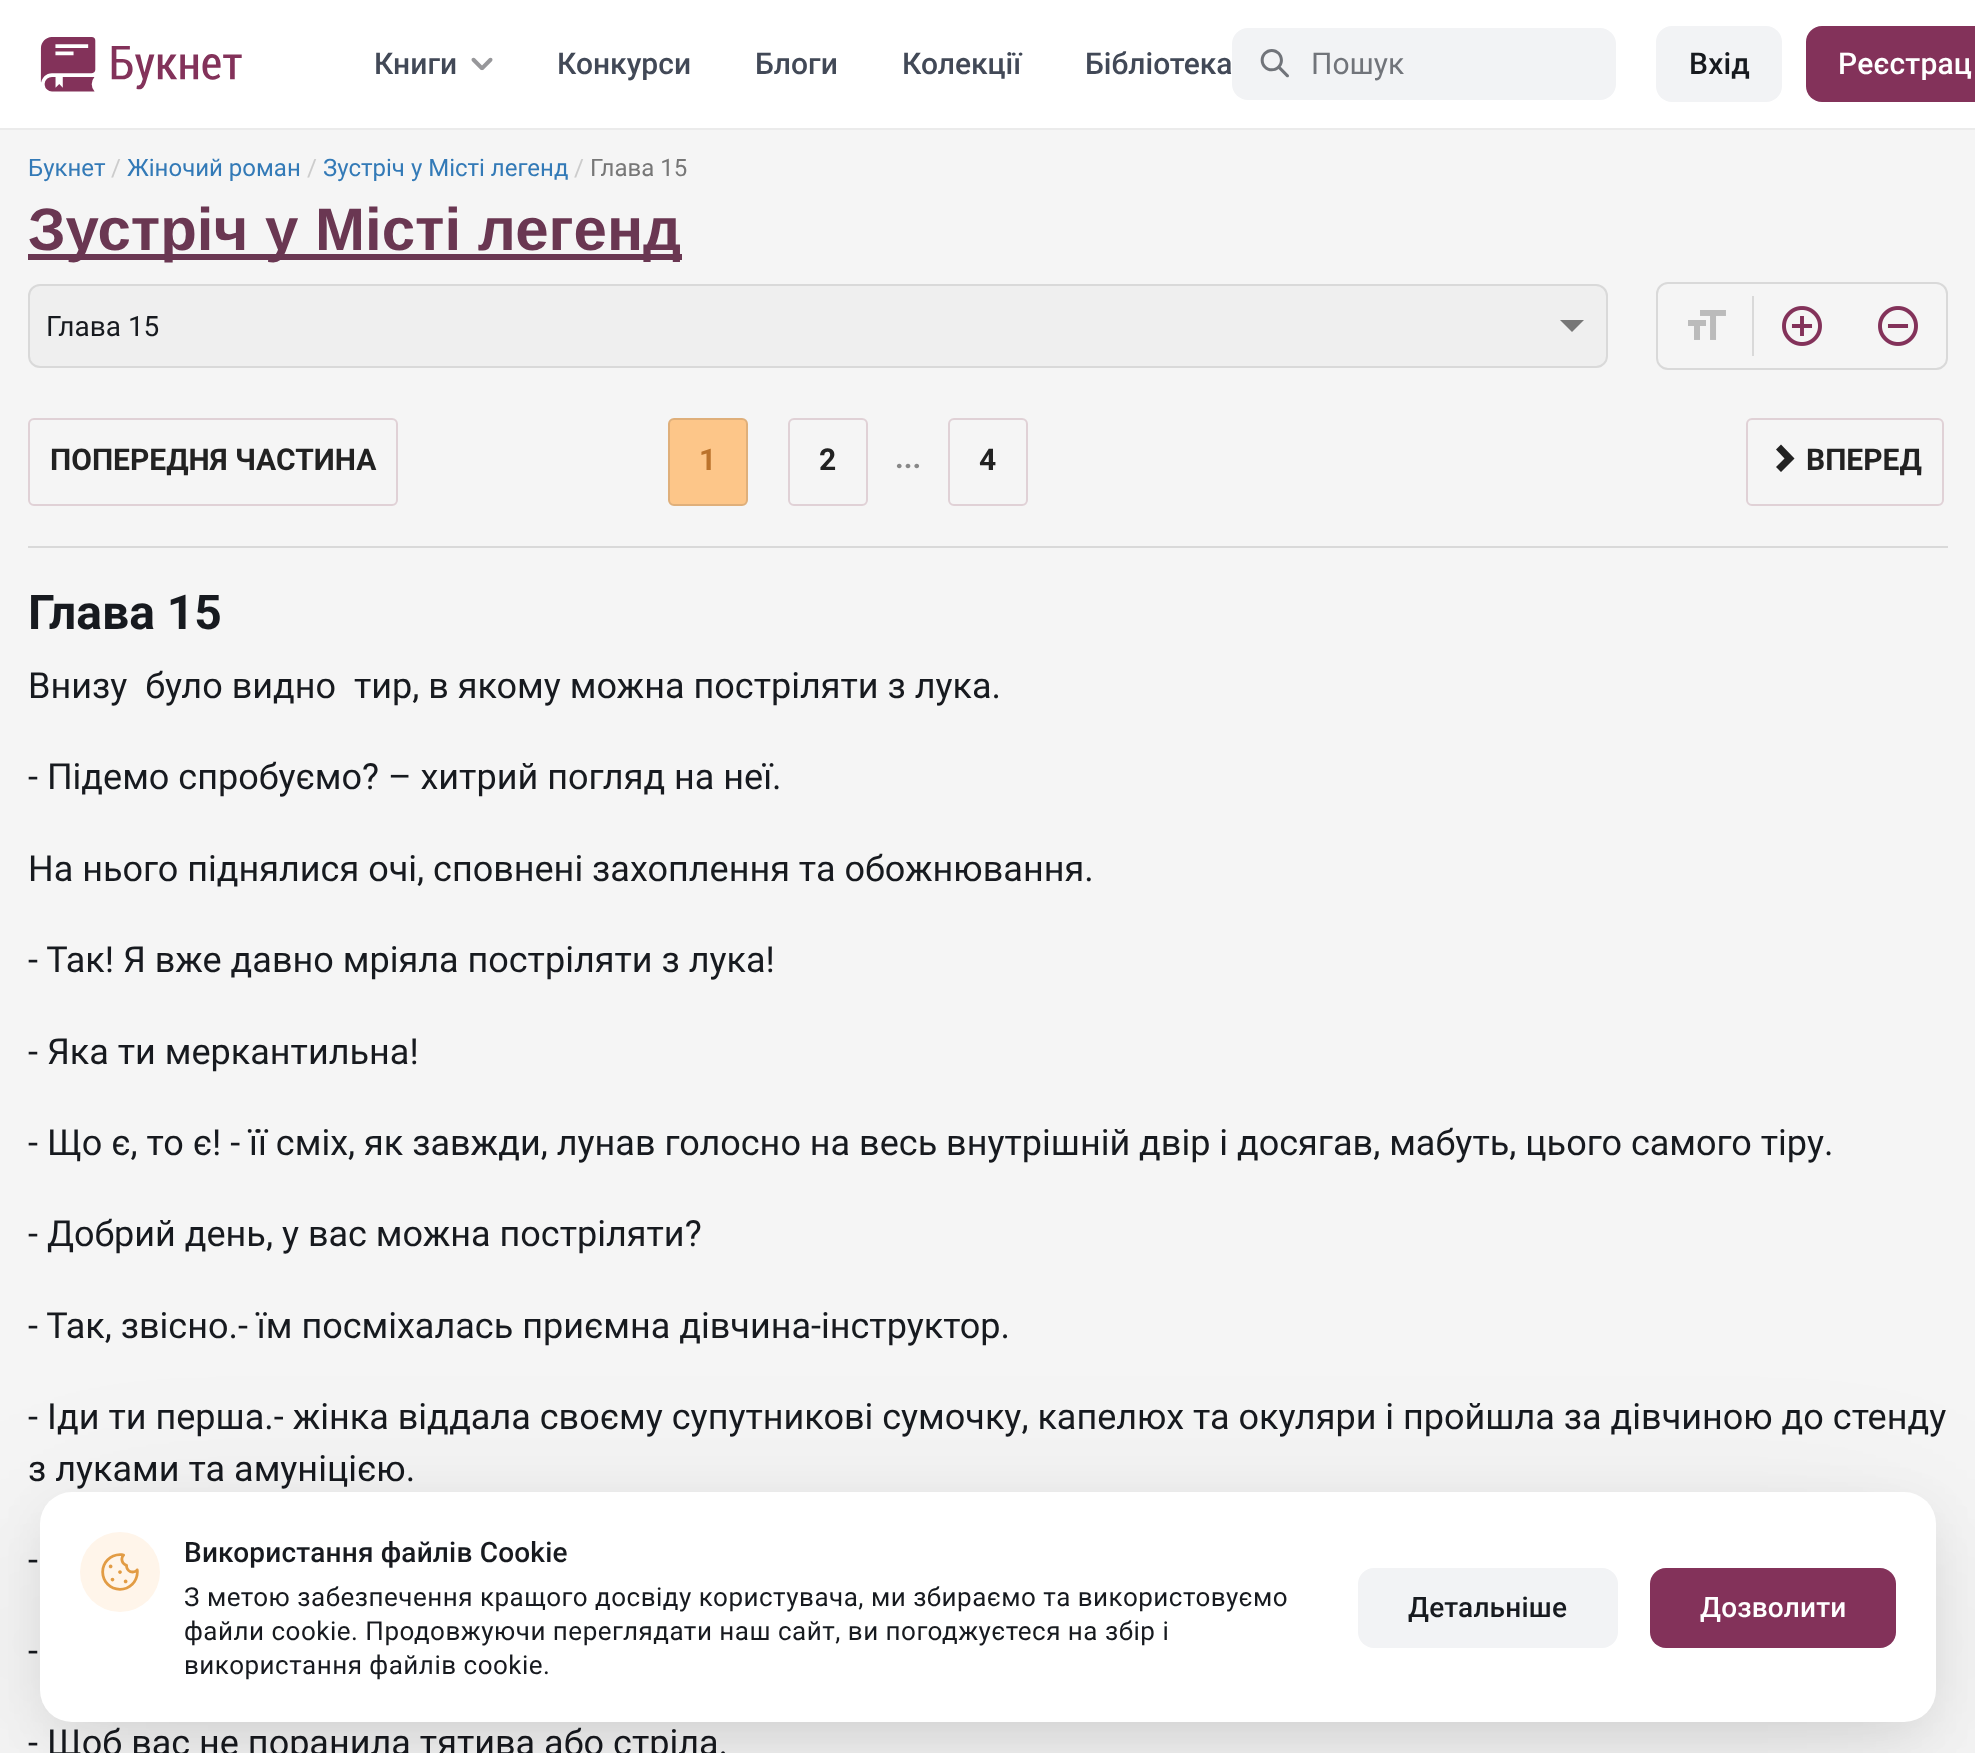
<svg xmlns="http://www.w3.org/2000/svg" width="1975" height="1753">
<rect width="100%" height="100%" fill="#f5f5f5"/>
<rect width="1975" height="128" fill="#fff"/>
<rect y="128" width="1975" height="2" fill="#ebebeb"/>
<image x="40" y="37" width="202" height="55" href="media/1.png"/>
<text x="374" y="74" style="font-family:Roboto;font-size:30px;font-weight:500;fill:#424957">Книги</text>
<image x="471" y="57" width="22" height="14" href="media/2.png"/>
<text x="557" y="74" style="font-family:Roboto;font-size:30px;font-weight:500;fill:#424957">Конкурси</text>
<text x="755" y="74" style="font-family:Roboto;font-size:30px;font-weight:500;fill:#424957">Блоги</text>
<text x="902" y="74" style="font-family:Roboto;font-size:30px;font-weight:500;fill:#424957">Колекції</text>
<text x="1085" y="74" style="font-family:Roboto;font-size:30px;font-weight:500;fill:#424957">Бібліотека</text>
<rect x="1232" y="28" width="384" height="72" rx="16" fill="#f2f3f5"/>
<image x="1260" y="49" width="29" height="29" href="media/3.png"/>
<text x="1311" y="74" style="font-family:Roboto;font-size:30px;fill:#71747a">Пошук</text>
<rect x="1656" y="26" width="126" height="76" rx="16" fill="#f2f3f5"/>
<text x="1689" y="74" style="font-family:Roboto;font-size:30px;font-weight:500;letter-spacing:0.2px;fill:#171a1f">Вхід</text>
<rect x="1806" y="26" width="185" height="76" rx="16" fill="#83325a"/>
<text x="1838" y="74" style="font-family:Roboto;font-size:30px;font-weight:500;letter-spacing:0.2px;fill:#fff">Реєстрац</text>
<text x="28" y="176" style="font-family:Roboto;font-size:24px;fill:#337ab7">Букнет</text>
<text x="111" y="176" style="font-family:Roboto;font-size:24px;fill:#ccc">/</text>
<text x="127" y="176" style="font-family:Roboto;font-size:24px;fill:#337ab7">Жіночий роман</text>
<text x="307" y="176" style="font-family:Roboto;font-size:24px;fill:#ccc">/</text>
<text x="323" y="176" style="font-family:Roboto;font-size:24px;fill:#337ab7">Зустріч у Місті легенд</text>
<text x="574" y="176" style="font-family:Roboto;font-size:24px;fill:#ccc">/</text>
<text x="590" y="176" style="font-family:Roboto;font-size:24px;fill:#777">Глава 15</text>
<rect x="28" y="254" width="654" height="6" fill="#6a3752"/>
<text x="28" y="250" style="font-family:Liberation Sans;font-size:60px;font-weight:bold;fill:#6a3752">Зустріч у Місті легенд</text>
<rect x="29" y="285" width="1578" height="82" rx="11" fill="#efefef" stroke="#d9d9d9" stroke-width="2"/>
<text x="46" y="336" style="font-family:Roboto;font-size:28px;fill:#171a1f">Глава 15</text>
<path d="M1560 320h24l-12 12z" fill="#777"/>
<rect x="1657" y="283" width="290" height="86" rx="11" fill="none" stroke="#d9d9d9" stroke-width="2"/>
<image x="1688" y="310" width="38" height="30" href="media/4.png"/>
<rect x="1752" y="296" width="2" height="60" fill="#d9d9d9"/>
<image x="1782" y="306" width="40" height="40" href="media/5.png"/>
<image x="1878" y="306" width="40" height="40" href="media/6.png"/>
<rect x="28" y="546" width="1920" height="2" fill="#d9d9d9"/>
<rect x="29" y="419" width="368" height="86" rx="5" fill="none" stroke="#e0d1d6" stroke-width="2"/>
<text x="50" y="470" style="font-family:Roboto;font-size:30px;font-weight:bold;fill:#222">ПОПЕРЕДНЯ ЧАСТИНА</text>
<rect x="669" y="419" width="78" height="86" rx="5" fill="#fdc689" stroke="#dfaf7a" stroke-width="2"/>
<text x="699" y="470" style="font-family:Roboto;font-size:30px;font-weight:bold;fill:#bb732c">1</text>
<rect x="789" y="419" width="78" height="86" rx="5" fill="none" stroke="#e0d1d6" stroke-width="2"/>
<text x="819" y="470" style="font-family:Roboto;font-size:30px;font-weight:bold;fill:#222">2</text>
<text x="895" y="468" style="font-family:Roboto;font-size:30px;font-weight:bold;fill:#888">...</text>
<rect x="949" y="419" width="78" height="86" rx="5" fill="none" stroke="#e0d1d6" stroke-width="2"/>
<text x="979" y="470" style="font-family:Roboto;font-size:30px;font-weight:bold;fill:#222">4</text>
<rect x="1747" y="419" width="196" height="86" rx="5" fill="none" stroke="#e0d1d6" stroke-width="2"/>
<path d="M1794.5 458.5l-13.5 13.5l-5-5l8.5-8.5l-8.5-9l5-5z" fill="#222"/>
<text x="1806" y="470" style="font-family:Roboto;font-size:30px;font-weight:bold;fill:#222">ВПЕРЕД</text>
<text x="28" y="629" style="font-family:Roboto;font-size:48px;font-weight:bold;fill:#171a1f">Глава 15</text>
<text x="28" y="698" style="font-family:Roboto;font-size:36px;fill:#171a1f" xml:space="preserve">Внизу  було видно  тир, в якому можна постріляти з лука.</text>
<text x="28" y="789" style="font-family:Roboto;font-size:36px;fill:#171a1f">- Підемо спробуємо? – хитрий погляд на неї.</text>
<text x="28" y="881" style="font-family:Roboto;font-size:36px;fill:#171a1f">На нього піднялися очі, сповнені захоплення та обожнювання.</text>
<text x="28" y="972" style="font-family:Roboto;font-size:36px;fill:#171a1f">- Так! Я вже давно мріяла постріляти з лука!</text>
<text x="28" y="1064" style="font-family:Roboto;font-size:36px;fill:#171a1f">- Яка ти меркантильна!</text>
<text x="28" y="1155" style="font-family:Roboto;font-size:36px;fill:#171a1f">- Що є, то є! - її сміх, як завжди, лунав голосно на весь внутрішній двір і досягав, мабуть, цього самого тіру.</text>
<text x="28" y="1246" style="font-family:Roboto;font-size:36px;fill:#171a1f">- Добрий день, у вас можна постріляти?</text>
<text x="28" y="1338" style="font-family:Roboto;font-size:36px;fill:#171a1f">- Так, звісно.- їм посміхалась приємна дівчина-інструктор.</text>
<text x="28" y="1429" style="font-family:Roboto;font-size:36px;fill:#171a1f">- Іди ти перша.- жінка віддала своєму супутникові сумочку, капелюх та окуляри і пройшла за дівчиною до стенду</text>
<text x="28" y="1481" style="font-family:Roboto;font-size:36px;fill:#171a1f">з луками та амуніцією.</text>
<text x="28" y="1572" style="font-family:Roboto;font-size:36px;fill:#171a1f">-</text>
<text x="28" y="1663" style="font-family:Roboto;font-size:36px;fill:#171a1f">-</text>
<text x="28" y="1755" style="font-family:Roboto;font-size:36px;fill:#171a1f">- Щоб вас не поранила тятива або стріла.</text>
<rect x="48" y="1536" width="1880" height="214" rx="24" fill="#00000014" filter="blur(88px)"/>
<rect x="52" y="1520" width="1872" height="206" rx="20" fill="#0000001f" filter="blur(28px)"/>
<rect x="40" y="1492" width="1896" height="230" rx="32" fill="#fff"/>
<circle cx="120" cy="1572" r="40" fill="#fff5ea"/>
<image x="101" y="1553" width="38" height="38" href="media/7.png"/>
<text x="184" y="1562" style="font-family:Roboto;font-size:28px;font-weight:500;letter-spacing:0.2px;fill:#171a1f">Використання файлів Cookie</text>
<text x="184" y="1606" style="font-family:Roboto;font-size:26px;letter-spacing:0.5px;fill:#171a1f">З метою забезпечення кращого досвіду користувача, ми збираємо та використовуємо</text>
<text x="184" y="1640" style="font-family:Roboto;font-size:26px;letter-spacing:0.5px;fill:#171a1f">файли cookie. Продовжуючи переглядати наш сайт, ви погоджуєтеся на збір і</text>
<text x="184" y="1674" style="font-family:Roboto;font-size:26px;letter-spacing:0.5px;fill:#171a1f">використання файлів cookie.</text>
<rect x="1358" y="1568" width="260" height="80" rx="16" fill="#f2f3f5"/>
<text x="1408" y="1617" style="font-family:Roboto;font-size:28px;font-weight:500;letter-spacing:0.2px;fill:#171a1f">Детальніше</text>
<rect x="1650" y="1568" width="246" height="80" rx="16" fill="#83325a"/>
<text x="1700" y="1617" style="font-family:Roboto;font-size:28px;font-weight:500;letter-spacing:0.2px;fill:#fff">Дозволити</text>
</svg>
